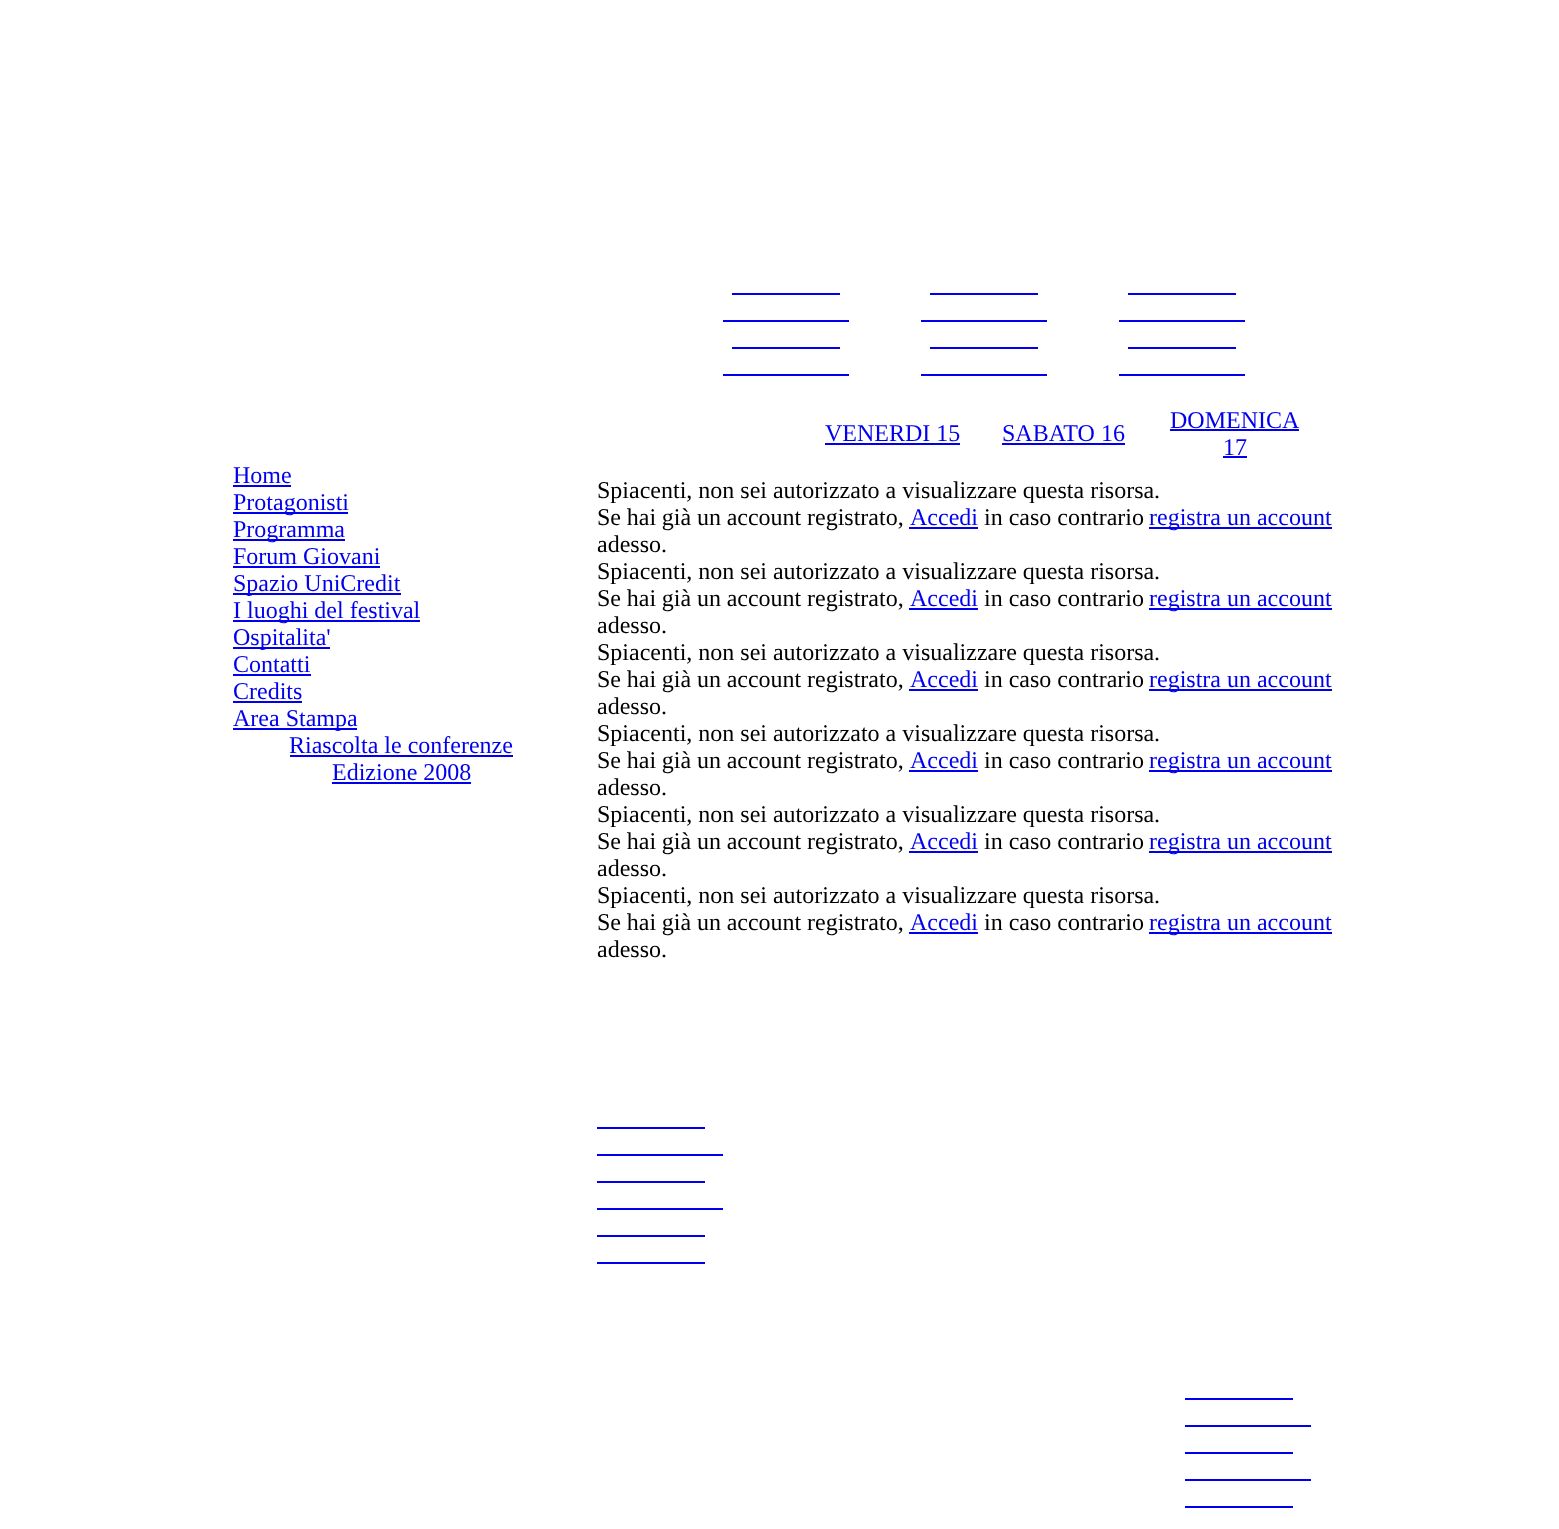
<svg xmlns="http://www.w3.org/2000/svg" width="1559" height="1529">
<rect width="100%" height="100%" fill="#fff"/>
<rect x="732" y="293" width="108" height="2" fill="#00e"/>
<rect x="723" y="320" width="126" height="2" fill="#00e"/>
<rect x="732" y="347" width="108" height="2" fill="#00e"/>
<rect x="723" y="374" width="126" height="2" fill="#00e"/>
<rect x="930" y="293" width="108" height="2" fill="#00e"/>
<rect x="921" y="320" width="126" height="2" fill="#00e"/>
<rect x="930" y="347" width="108" height="2" fill="#00e"/>
<rect x="921" y="374" width="126" height="2" fill="#00e"/>
<rect x="1128" y="293" width="108" height="2" fill="#00e"/>
<rect x="1119" y="320" width="126" height="2" fill="#00e"/>
<rect x="1128" y="347" width="108" height="2" fill="#00e"/>
<rect x="1119" y="374" width="126" height="2" fill="#00e"/>
<text x="825" y="441" style="font-family:Liberation Serif;font-size:24px;fill:#00e">VENERDI 15</text>
<rect x="825" y="443" width="135" height="2" fill="#00e"/>
<text x="1002" y="441" style="font-family:Liberation Serif;font-size:24px;fill:#00e">SABATO 16</text>
<rect x="1002" y="443" width="123" height="2" fill="#00e"/>
<text x="1170" y="428" style="font-family:Liberation Serif;font-size:24px;fill:#00e">DOMENICA</text>
<rect x="1170" y="429" width="129" height="2" fill="#00e"/>
<text x="1223" y="455" style="font-family:Liberation Serif;font-size:24px;fill:#00e">17</text>
<rect x="1223" y="456" width="24" height="2" fill="#00e"/>
<text x="233" y="483" style="font-family:Liberation Serif;font-size:24px;fill:#00e">Home</text>
<rect x="233" y="485" width="58" height="2" fill="#00e"/>
<rect x="233" y="512" width="115" height="2" fill="#00e"/>
<text x="233" y="510" style="font-family:Liberation Serif;font-size:24px;fill:#00e">Protagonisti</text>
<rect x="233" y="539" width="112" height="2" fill="#00e"/>
<text x="233" y="537" style="font-family:Liberation Serif;font-size:24px;fill:#00e">Programma</text>
<text x="233" y="564" style="font-family:Liberation Serif;font-size:24px;fill:#00e">Forum Giovani</text>
<rect x="233" y="566" width="147" height="2" fill="#00e"/>
<rect x="233" y="593" width="168" height="2" fill="#00e"/>
<text x="233" y="591" style="font-family:Liberation Serif;font-size:24px;fill:#00e">Spazio UniCredit</text>
<rect x="233" y="620" width="187" height="2" fill="#00e"/>
<text x="233" y="618" style="font-family:Liberation Serif;font-size:24px;fill:#00e">I luoghi del festival</text>
<rect x="233" y="647" width="97" height="2" fill="#00e"/>
<text x="233" y="645" style="font-family:Liberation Serif;font-size:24px;fill:#00e">Ospitalita'</text>
<text x="233" y="672" style="font-family:Liberation Serif;font-size:24px;fill:#00e">Contatti</text>
<rect x="233" y="674" width="78" height="2" fill="#00e"/>
<text x="233" y="699" style="font-family:Liberation Serif;font-size:24px;fill:#00e">Credits</text>
<rect x="233" y="701" width="69" height="2" fill="#00e"/>
<rect x="233" y="728" width="124" height="2" fill="#00e"/>
<text x="233" y="726" style="font-family:Liberation Serif;font-size:24px;fill:#00e">Area Stampa</text>
<text x="289" y="753" style="font-family:Liberation Serif;font-size:24px;fill:#00e">Riascolta le conferenze</text>
<rect x="290" y="755" width="223" height="2" fill="#00e"/>
<text x="332" y="780" style="font-family:Liberation Serif;font-size:24px;fill:#00e">Edizione 2008</text>
<rect x="332" y="782" width="139" height="2" fill="#00e"/>
<text x="597" y="498" style="font-family:Liberation Serif;font-size:24px;fill:#000">Spiacenti, non sei autorizzato a visualizzare questa risorsa.</text>
<text x="597" y="525" word-spacing="-0.25" style="font-family:Liberation Serif;font-size:24px;fill:#000">Se hai già un account registrato,</text>
<text x="910" y="525" style="font-family:Liberation Serif;font-size:24px;fill:#00e">Accedi</text>
<rect x="909" y="527" width="69" height="2" fill="#00e"/>
<text x="984" y="525" style="font-family:Liberation Serif;font-size:24px;fill:#000">in caso contrario</text>
<rect x="1149" y="527" width="183" height="2" fill="#00e"/>
<text x="1149" y="525" style="font-family:Liberation Serif;font-size:24px;fill:#00e">registra un account</text>
<text x="597" y="552" style="font-family:Liberation Serif;font-size:24px;fill:#000">adesso.</text>
<text x="597" y="579" style="font-family:Liberation Serif;font-size:24px;fill:#000">Spiacenti, non sei autorizzato a visualizzare questa risorsa.</text>
<text x="597" y="606" word-spacing="-0.25" style="font-family:Liberation Serif;font-size:24px;fill:#000">Se hai già un account registrato,</text>
<text x="910" y="606" style="font-family:Liberation Serif;font-size:24px;fill:#00e">Accedi</text>
<rect x="909" y="608" width="69" height="2" fill="#00e"/>
<text x="984" y="606" style="font-family:Liberation Serif;font-size:24px;fill:#000">in caso contrario</text>
<rect x="1149" y="608" width="183" height="2" fill="#00e"/>
<text x="1149" y="606" style="font-family:Liberation Serif;font-size:24px;fill:#00e">registra un account</text>
<text x="597" y="633" style="font-family:Liberation Serif;font-size:24px;fill:#000">adesso.</text>
<text x="597" y="660" style="font-family:Liberation Serif;font-size:24px;fill:#000">Spiacenti, non sei autorizzato a visualizzare questa risorsa.</text>
<text x="597" y="687" word-spacing="-0.25" style="font-family:Liberation Serif;font-size:24px;fill:#000">Se hai già un account registrato,</text>
<text x="910" y="687" style="font-family:Liberation Serif;font-size:24px;fill:#00e">Accedi</text>
<rect x="909" y="689" width="69" height="2" fill="#00e"/>
<text x="984" y="687" style="font-family:Liberation Serif;font-size:24px;fill:#000">in caso contrario</text>
<rect x="1149" y="689" width="183" height="2" fill="#00e"/>
<text x="1149" y="687" style="font-family:Liberation Serif;font-size:24px;fill:#00e">registra un account</text>
<text x="597" y="714" style="font-family:Liberation Serif;font-size:24px;fill:#000">adesso.</text>
<text x="597" y="741" style="font-family:Liberation Serif;font-size:24px;fill:#000">Spiacenti, non sei autorizzato a visualizzare questa risorsa.</text>
<text x="597" y="768" word-spacing="-0.25" style="font-family:Liberation Serif;font-size:24px;fill:#000">Se hai già un account registrato,</text>
<text x="910" y="768" style="font-family:Liberation Serif;font-size:24px;fill:#00e">Accedi</text>
<rect x="909" y="770" width="69" height="2" fill="#00e"/>
<text x="984" y="768" style="font-family:Liberation Serif;font-size:24px;fill:#000">in caso contrario</text>
<rect x="1149" y="770" width="183" height="2" fill="#00e"/>
<text x="1149" y="768" style="font-family:Liberation Serif;font-size:24px;fill:#00e">registra un account</text>
<text x="597" y="795" style="font-family:Liberation Serif;font-size:24px;fill:#000">adesso.</text>
<text x="597" y="822" style="font-family:Liberation Serif;font-size:24px;fill:#000">Spiacenti, non sei autorizzato a visualizzare questa risorsa.</text>
<text x="597" y="849" word-spacing="-0.25" style="font-family:Liberation Serif;font-size:24px;fill:#000">Se hai già un account registrato,</text>
<text x="910" y="849" style="font-family:Liberation Serif;font-size:24px;fill:#00e">Accedi</text>
<rect x="909" y="851" width="69" height="2" fill="#00e"/>
<text x="984" y="849" style="font-family:Liberation Serif;font-size:24px;fill:#000">in caso contrario</text>
<rect x="1149" y="851" width="183" height="2" fill="#00e"/>
<text x="1149" y="849" style="font-family:Liberation Serif;font-size:24px;fill:#00e">registra un account</text>
<text x="597" y="876" style="font-family:Liberation Serif;font-size:24px;fill:#000">adesso.</text>
<text x="597" y="903" style="font-family:Liberation Serif;font-size:24px;fill:#000">Spiacenti, non sei autorizzato a visualizzare questa risorsa.</text>
<text x="597" y="930" word-spacing="-0.25" style="font-family:Liberation Serif;font-size:24px;fill:#000">Se hai già un account registrato,</text>
<text x="910" y="930" style="font-family:Liberation Serif;font-size:24px;fill:#00e">Accedi</text>
<rect x="909" y="932" width="69" height="2" fill="#00e"/>
<text x="984" y="930" style="font-family:Liberation Serif;font-size:24px;fill:#000">in caso contrario</text>
<rect x="1149" y="932" width="183" height="2" fill="#00e"/>
<text x="1149" y="930" style="font-family:Liberation Serif;font-size:24px;fill:#00e">registra un account</text>
<text x="597" y="957" style="font-family:Liberation Serif;font-size:24px;fill:#000">adesso.</text>
<rect x="597" y="1127" width="108" height="2" fill="#00e"/>
<rect x="597" y="1154" width="126" height="2" fill="#00e"/>
<rect x="597" y="1181" width="108" height="2" fill="#00e"/>
<rect x="597" y="1208" width="126" height="2" fill="#00e"/>
<rect x="597" y="1235" width="108" height="2" fill="#00e"/>
<rect x="597" y="1262" width="108" height="2" fill="#00e"/>
<rect x="1185" y="1398" width="108" height="2" fill="#00e"/>
<rect x="1185" y="1425" width="126" height="2" fill="#00e"/>
<rect x="1185" y="1452" width="108" height="2" fill="#00e"/>
<rect x="1185" y="1479" width="126" height="2" fill="#00e"/>
<rect x="1185" y="1506" width="108" height="2" fill="#00e"/>
</svg>
